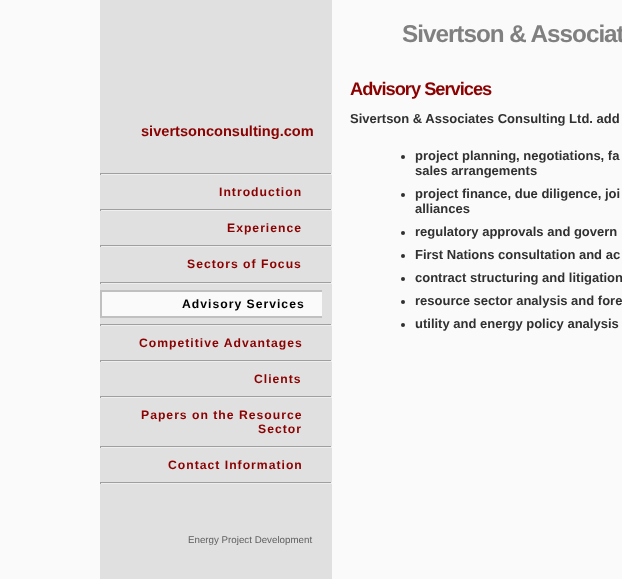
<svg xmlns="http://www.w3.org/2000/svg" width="622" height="579">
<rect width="100%" height="100%" fill="#fafafa"/>
<rect x="100" width="232" height="579" fill="#e0e0e0"/>
<text x="141" y="136" style="font-family:Liberation Sans;font-size:14.6px;font-weight:bold;fill:#8b0000">sivertsonconsulting.com</text>
<rect x="100" y="173" width="232" height="1" fill="#9f9f9f"/>
<rect x="331" y="173" width="1" height="2" fill="#eee"/>
<rect x="100" y="174" width="232" height="1" fill="#eee"/>
<rect x="100" y="173" width="1" height="2" fill="#9f9f9f"/>
<text x="219" y="196" style="font-family:Liberation Sans;font-size:12.2px;font-weight:bold;letter-spacing:1px;fill:#8b0000">Introduction</text>
<rect x="100" y="209" width="232" height="1" fill="#9f9f9f"/>
<rect x="331" y="209" width="1" height="2" fill="#eee"/>
<rect x="100" y="210" width="232" height="1" fill="#eee"/>
<rect x="100" y="209" width="1" height="2" fill="#9f9f9f"/>
<text x="227" y="232" style="font-family:Liberation Sans;font-size:12.2px;font-weight:bold;letter-spacing:1px;fill:#8b0000">Experience</text>
<rect x="100" y="245" width="232" height="1" fill="#9f9f9f"/>
<rect x="331" y="245" width="1" height="2" fill="#eee"/>
<rect x="100" y="246" width="232" height="1" fill="#eee"/>
<rect x="100" y="245" width="1" height="2" fill="#9f9f9f"/>
<text x="187" y="268" style="font-family:Liberation Sans;font-size:12.2px;font-weight:bold;letter-spacing:1px;fill:#8b0000">Sectors of Focus</text>
<rect x="100" y="282" width="232" height="1" fill="#9f9f9f"/>
<rect x="331" y="282" width="1" height="2" fill="#eee"/>
<rect x="100" y="283" width="232" height="1" fill="#eee"/>
<rect x="100" y="282" width="1" height="2" fill="#9f9f9f"/>
<rect x="102" y="292" width="220" height="24" fill="#fafafa"/>
<rect x="100" y="290" width="222" height="2" fill="#c0c0c0"/>
<rect x="100" y="316" width="222" height="2" fill="#c0c0c0"/>
<rect x="100" y="290" width="2" height="28" fill="#c0c0c0"/>
<text x="182" y="308" style="font-family:Liberation Sans;font-size:12.2px;font-weight:bold;letter-spacing:1px;fill:#000">Advisory Services</text>
<rect x="100" y="324" width="232" height="1" fill="#9f9f9f"/>
<rect x="331" y="324" width="1" height="2" fill="#eee"/>
<rect x="100" y="325" width="232" height="1" fill="#eee"/>
<rect x="100" y="324" width="1" height="2" fill="#9f9f9f"/>
<text x="139" y="347" style="font-family:Liberation Sans;font-size:12.2px;font-weight:bold;letter-spacing:1px;fill:#8b0000">Competitive Advantages</text>
<rect x="100" y="360" width="232" height="1" fill="#9f9f9f"/>
<rect x="331" y="360" width="1" height="2" fill="#eee"/>
<rect x="100" y="361" width="232" height="1" fill="#eee"/>
<rect x="100" y="360" width="1" height="2" fill="#9f9f9f"/>
<text x="254" y="383" style="font-family:Liberation Sans;font-size:12.2px;font-weight:bold;letter-spacing:1px;fill:#8b0000">Clients</text>
<rect x="100" y="396" width="232" height="1" fill="#9f9f9f"/>
<rect x="331" y="396" width="1" height="2" fill="#eee"/>
<rect x="100" y="397" width="232" height="1" fill="#eee"/>
<rect x="100" y="396" width="1" height="2" fill="#9f9f9f"/>
<text x="141" y="419" style="font-family:Liberation Sans;font-size:12.2px;font-weight:bold;letter-spacing:1px;fill:#8b0000">Papers on the Resource</text>
<text x="258" y="433" style="font-family:Liberation Sans;font-size:12.2px;font-weight:bold;letter-spacing:1px;fill:#8b0000">Sector</text>
<rect x="100" y="446" width="232" height="1" fill="#9f9f9f"/>
<rect x="331" y="446" width="1" height="2" fill="#eee"/>
<rect x="100" y="447" width="232" height="1" fill="#eee"/>
<rect x="100" y="446" width="1" height="2" fill="#9f9f9f"/>
<text x="168" y="469" style="font-family:Liberation Sans;font-size:12.2px;font-weight:bold;letter-spacing:1px;fill:#8b0000">Contact Information</text>
<rect x="100" y="482" width="232" height="1" fill="#9f9f9f"/>
<rect x="331" y="482" width="1" height="2" fill="#eee"/>
<rect x="100" y="483" width="232" height="1" fill="#eee"/>
<rect x="100" y="482" width="1" height="2" fill="#9f9f9f"/>
<text x="188" y="543" style="font-family:Liberation Sans;font-size:9.75px;fill:#606060">Energy Project Development</text>
<text x="402" y="42" style="font-family:Liberation Sans;font-size:24.25px;font-weight:bold;letter-spacing:-1px;fill:#808080">Sivertson &amp; Associat</text>
<text x="350" y="95" style="font-family:Liberation Sans;font-size:18.25px;font-weight:bold;letter-spacing:-1px;fill:#8b0000">Advisory Services</text>
<text x="350" y="123" style="font-family:Liberation Sans;font-size:13px;font-weight:bold;fill:#303030">Sivertson &amp; Associates Consulting Ltd. add</text>
<circle cx="403" cy="157" r="2" fill="#303030"/>
<text x="415" y="160" style="font-family:Liberation Sans;font-size:13px;font-weight:bold;fill:#303030">project planning, negotiations, fa</text>
<text x="415" y="175" style="font-family:Liberation Sans;font-size:13px;font-weight:bold;fill:#303030">sales arrangements</text>
<circle cx="403" cy="195" r="2" fill="#303030"/>
<text x="415" y="198" style="font-family:Liberation Sans;font-size:13px;font-weight:bold;fill:#303030">project finance, due diligence, joi</text>
<text x="415" y="213" style="font-family:Liberation Sans;font-size:13px;font-weight:bold;fill:#303030">alliances</text>
<circle cx="403" cy="233" r="2" fill="#303030"/>
<text x="415" y="236" style="font-family:Liberation Sans;font-size:13px;font-weight:bold;fill:#303030">regulatory approvals and govern</text>
<circle cx="403" cy="256" r="2" fill="#303030"/>
<text x="415" y="259" style="font-family:Liberation Sans;font-size:13px;font-weight:bold;fill:#303030">First Nations consultation and ac</text>
<circle cx="403" cy="279" r="2" fill="#303030"/>
<text x="415" y="282" style="font-family:Liberation Sans;font-size:13px;font-weight:bold;fill:#303030">contract structuring and litigation</text>
<circle cx="403" cy="302" r="2" fill="#303030"/>
<text x="415" y="305" style="font-family:Liberation Sans;font-size:13px;font-weight:bold;fill:#303030">resource sector analysis and fore</text>
<circle cx="403" cy="325" r="2" fill="#303030"/>
<text x="415" y="328" style="font-family:Liberation Sans;font-size:13px;font-weight:bold;fill:#303030">utility and energy policy analysis</text>
</svg>
